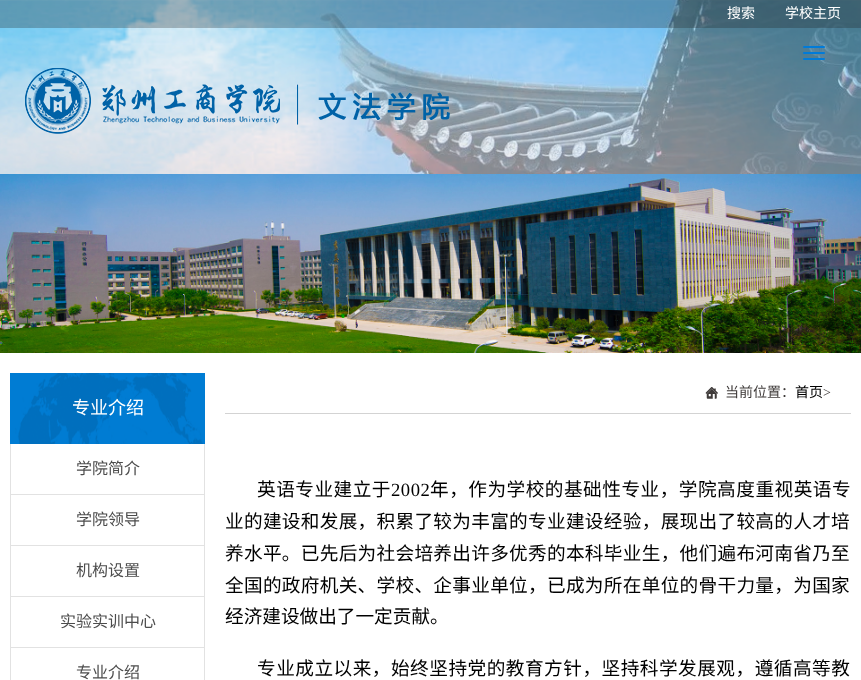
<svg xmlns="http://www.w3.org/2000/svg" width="861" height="680">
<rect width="100%" height="100%" fill="#fff"/>
<image x="0" y="0" width="861" height="174" href="media/1.png"/>
<rect width="861" height="28" fill="#1b1b1b47"/>
<text x="727" y="18" style="font-family:Noto Sans CJK SC;font-size:14px;fill:#fff">搜索</text>
<text x="785" y="18" style="font-family:Noto Sans CJK SC;font-size:14px;fill:#fff">学校主页</text>
<rect x="803" y="46" width="22" height="2" rx="1" fill="#007bd9"/>
<rect x="803" y="52" width="22" height="2" rx="1" fill="#007bd9"/>
<rect x="803" y="58" width="22" height="2" rx="1" fill="#007bd9"/>
<image x="25" y="68" width="425" height="66" href="media/2.png"/>
<image x="0" y="174" width="861" height="179" href="media/3.png"/>
<image x="10" y="373" width="195" height="71" href="media/4.png"/>
<text x="72" y="414" style="font-family:Noto Sans CJK SC;font-size:18px;fill:#fff">专业介绍</text>
<rect x="204" y="444" width="1" height="236" fill="#e2e2e2"/>
<rect x="10" y="444" width="1" height="236" fill="#e2e2e2"/>
<rect x="11" y="494" width="193" height="1" fill="#e2e2e2"/>
<text x="76" y="474" style="font-family:Noto Sans CJK SC;font-size:16px;fill:#4c4c4c">学院简介</text>
<rect x="11" y="545" width="193" height="1" fill="#e2e2e2"/>
<text x="76" y="525" style="font-family:Noto Sans CJK SC;font-size:16px;fill:#4c4c4c">学院领导</text>
<rect x="11" y="596" width="193" height="1" fill="#e2e2e2"/>
<text x="76" y="576" style="font-family:Noto Sans CJK SC;font-size:16px;fill:#4c4c4c">机构设置</text>
<rect x="11" y="647" width="193" height="1" fill="#e2e2e2"/>
<text x="60" y="627" style="font-family:Noto Sans CJK SC;font-size:16px;fill:#4c4c4c">实验实训中心</text>
<text x="76" y="678" style="font-family:Noto Sans CJK SC;font-size:16px;fill:#4c4c4c">专业介绍</text>
<rect x="225" y="413" width="626" height="1" fill="#d3d3d3"/>
<image x="705" y="387" width="13" height="12" href="media/5.png"/>
<text x="725" y="397" style="font-family:Noto Sans CJK SC;font-size:14px;fill:#3e3a39">当前位置：</text>
<text x="795" y="397" style="font-family:Noto Sans CJK SC;font-size:14px;fill:#000">首页</text>
<text x="823" y="397" style="font-family:Liberation Serif;font-size:14px;fill:#3e3a39">&gt;</text>
<text x="257" y="496" style="font-family:Noto Sans CJK SC;font-size:18.65px;letter-spacing:0.5px;fill:#000">英语专业建立于</text>
<text x="391" y="496" style="font-family:Liberation Serif;font-size:18.65px;letter-spacing:0.5px;fill:#000">2002</text>
<text x="430" y="496" style="font-family:Noto Sans CJK SC;font-size:18.65px;letter-spacing:0.5px;fill:#000">年，作为学校的基础性专业，学院高度重视英语专</text>
<text x="225" y="528" style="font-family:Noto Sans CJK SC;font-size:18.65px;letter-spacing:0.3px;fill:#000">业的建设和发展，积累了较为丰富的专业建设经验，展现出了较高的人才培</text>
<text x="225" y="560" style="font-family:Noto Sans CJK SC;font-size:18.65px;letter-spacing:0.3px;fill:#000">养水平。已先后为社会培养出许多优秀的本科毕业生，他们遍布河南省乃至</text>
<text x="225" y="592" style="font-family:Noto Sans CJK SC;font-size:18.65px;letter-spacing:0.3px;fill:#000">全国的政府机关、学校、企事业单位，已成为所在单位的骨干力量，为国家</text>
<text x="225" y="623" style="font-family:Noto Sans CJK SC;font-size:18.65px;fill:#000">经济建设做出了一定贡献。</text>
<text x="257" y="675" style="font-family:Noto Sans CJK SC;font-size:18.65px;letter-spacing:0.5px;fill:#000">专业成立以来，始终坚持党的教育方针，坚持科学发展观，遵循高等教</text>
</svg>
